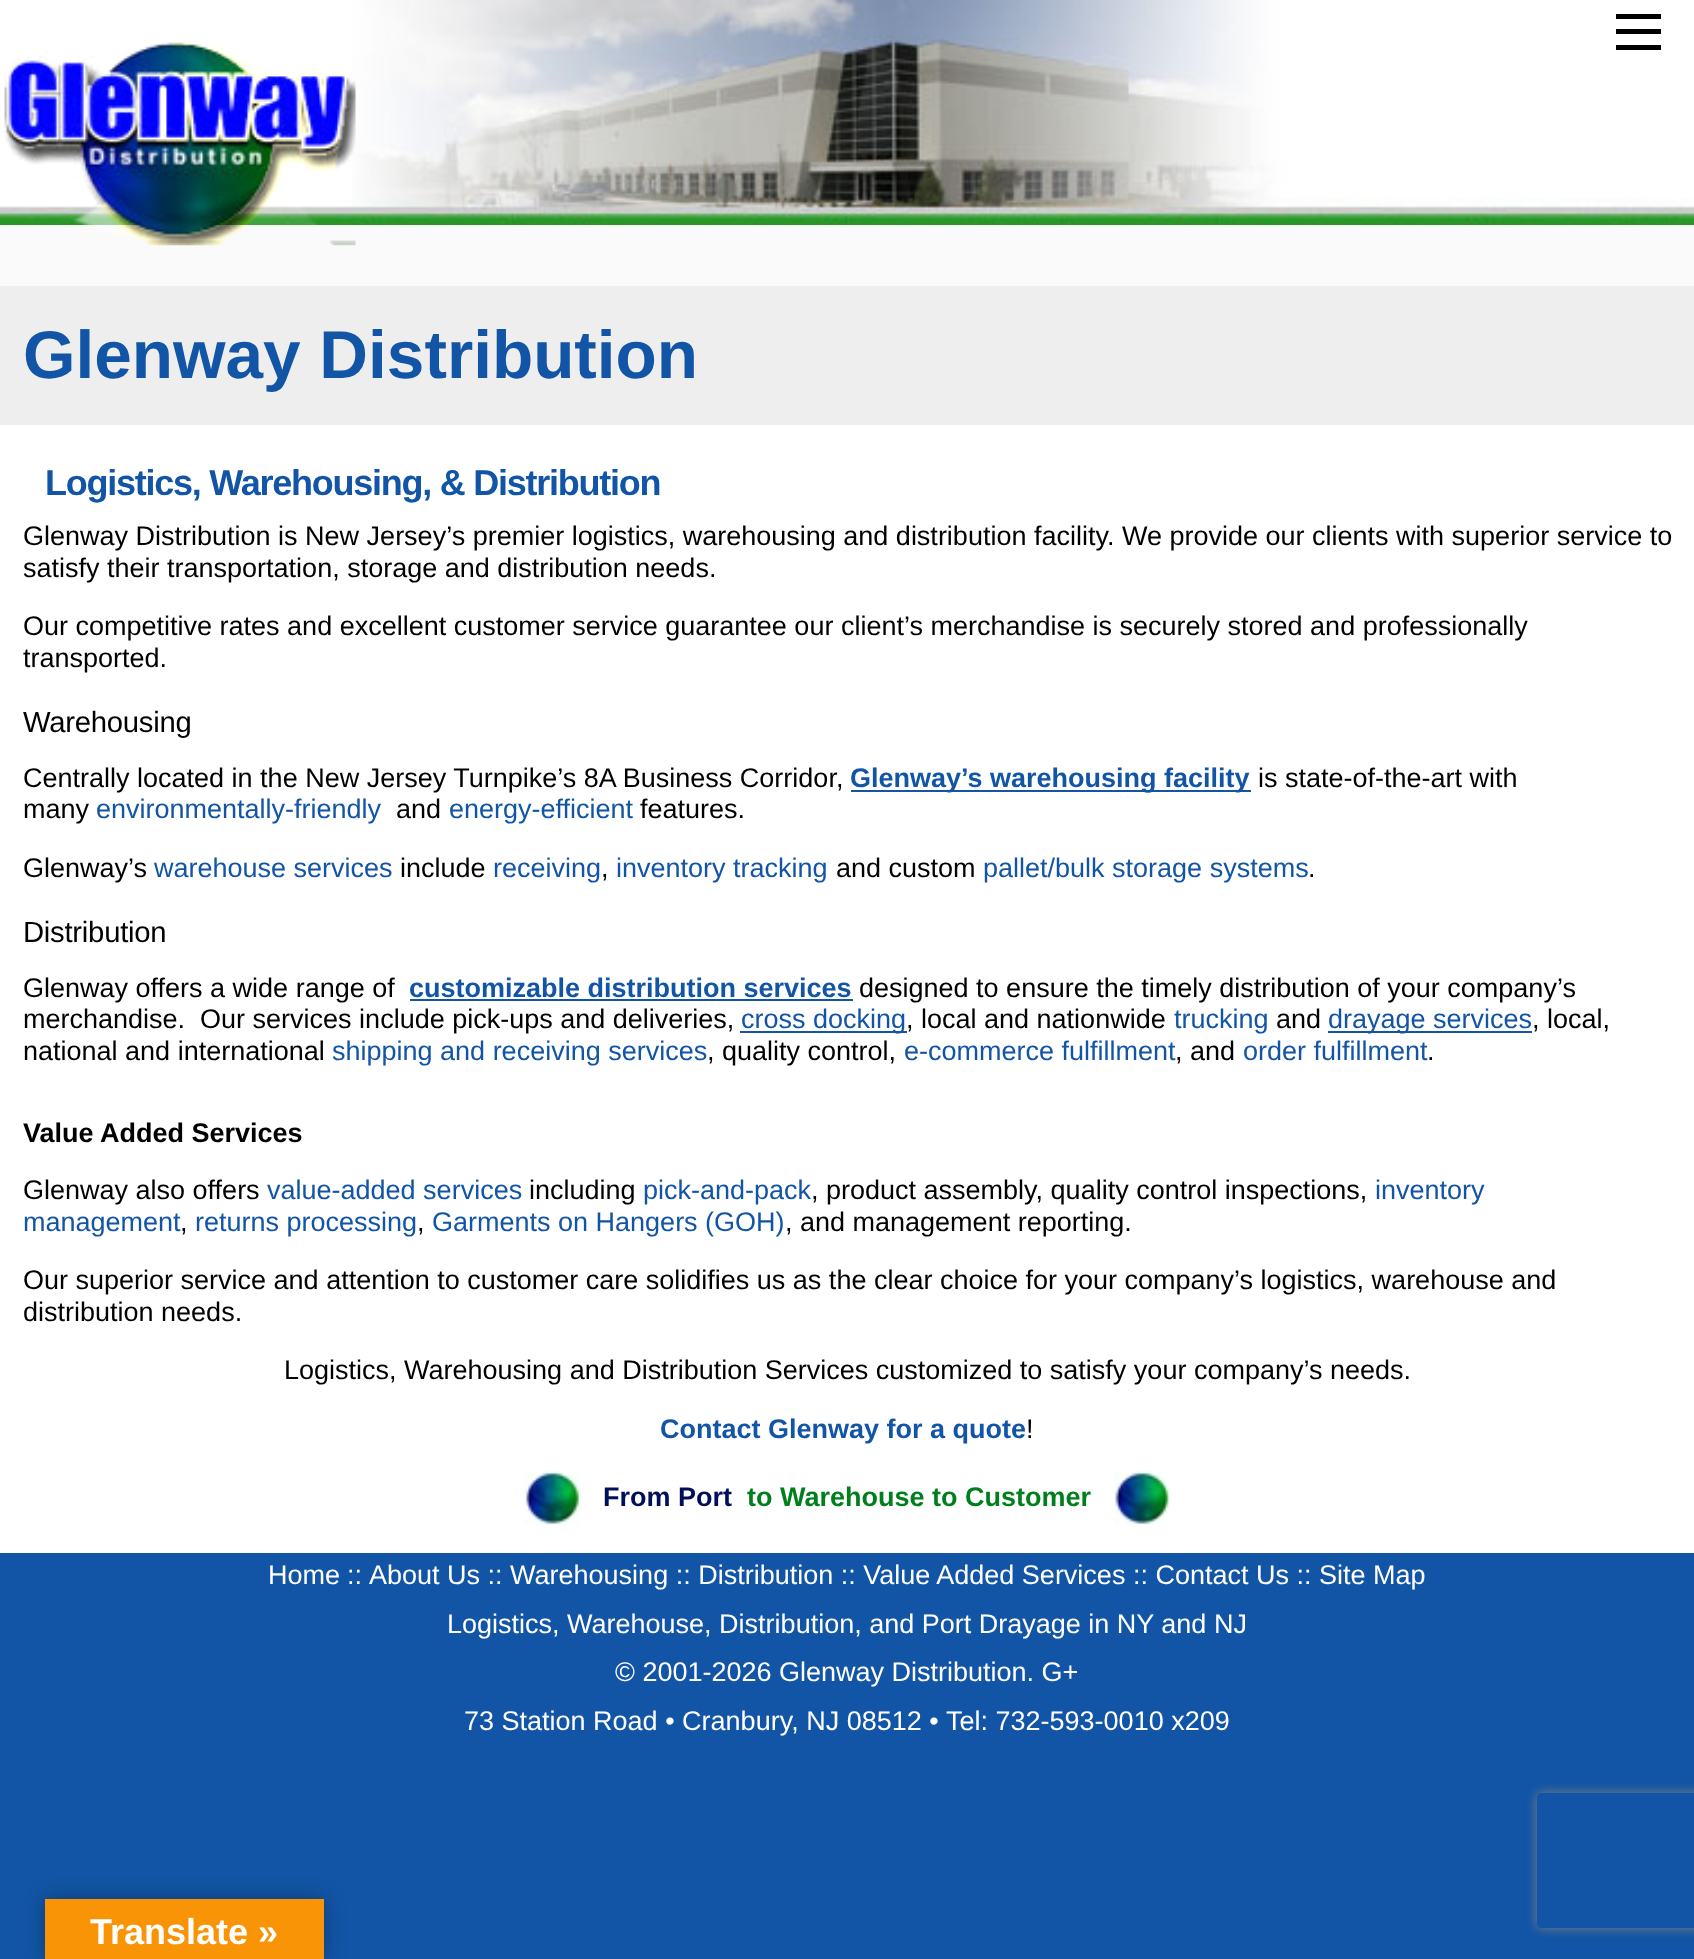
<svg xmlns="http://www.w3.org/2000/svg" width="1694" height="1959">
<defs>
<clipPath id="clip1"><path d="M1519 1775h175v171h-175zm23 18h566c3 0 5 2 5 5v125c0 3-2 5-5 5h-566c-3 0-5-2-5-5v-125c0-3 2-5 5-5z" clip-rule="evenodd"/></clipPath>
</defs>
<rect width="100%" height="100%" fill="#1255a6"/>
<rect y="225" width="1694" height="61" fill="#fafafa"/>
<image x="0" y="0" width="1694" height="225" href="media/1.png"/>
<rect x="1616" y="45" width="45" height="5" fill="#000"/>
<rect x="1616" y="14" width="45" height="5" fill="#000"/>
<rect x="1616" y="29" width="45" height="5" fill="#000"/>
<image x="2" y="39" width="354" height="207" href="media/2.png"/>
<rect y="425" width="1694" height="1128" fill="#fff"/>
<rect y="286" width="1694" height="139" fill="#eee"/>
<text x="23" y="378" style="font-family:Liberation Sans;font-size:67.5px;font-weight:bold;fill:#1255a6">Glenway Distribution</text>
<text x="45" y="495" style="font-family:Liberation Sans;font-size:36px;font-weight:bold;letter-spacing:-1.25px;fill:#1255a6">Logistics, Warehousing, &amp; Distribution</text>
<text x="23" y="545" style="font-family:Liberation Sans;font-size:27px;fill:#000">Glenway Distribution is New Jersey’s premier logistics, warehousing and distribution facility. We provide our clients with superior service to</text>
<text x="23" y="577" style="font-family:Liberation Sans;font-size:27px;fill:#000">satisfy their transportation, storage and distribution needs.</text>
<text x="23" y="635" style="font-family:Liberation Sans;font-size:27px;fill:#000">Our competitive rates and excellent customer service guarantee our client’s merchandise is securely stored and professionally</text>
<text x="23" y="667" style="font-family:Liberation Sans;font-size:27px;fill:#000">transported.</text>
<text x="23" y="732" style="font-family:Liberation Sans;font-size:29.25px;letter-spacing:-0.25px;fill:#000">Warehousing</text>
<text x="23" y="787" style="font-family:Liberation Sans;font-size:27px;fill:#000">Centrally located in the New Jersey Turnpike’s 8A Business Corridor,</text>
<rect x="851" y="790" width="400" height="2" fill="#1255a6"/>
<text x="850" y="787" style="font-family:Liberation Sans;font-size:27px;font-weight:bold;fill:#1255a6">Glenway’s warehousing facility</text>
<text x="1258" y="787" style="font-family:Liberation Sans;font-size:27px;fill:#000">is state-of-the-art with</text>
<text x="23" y="818" style="font-family:Liberation Sans;font-size:27px;fill:#000">many</text>
<text x="96" y="818" style="font-family:Liberation Sans;font-size:27px;fill:#1255a6">environmentally-friendly</text>
<text x="396" y="818" style="font-family:Liberation Sans;font-size:27px;fill:#000">and</text>
<text x="449" y="818" style="font-family:Liberation Sans;font-size:27px;fill:#1255a6">energy-efficient</text>
<text x="640" y="818" style="font-family:Liberation Sans;font-size:27px;fill:#000">features.</text>
<text x="23" y="877" style="font-family:Liberation Sans;font-size:27px;fill:#000">Glenway’s</text>
<text x="154" y="877" style="font-family:Liberation Sans;font-size:27px;fill:#1255a6">warehouse services</text>
<text x="400" y="877" style="font-family:Liberation Sans;font-size:27px;fill:#000">include</text>
<text x="493" y="877" style="font-family:Liberation Sans;font-size:27px;fill:#1255a6">receiving</text>
<text x="601" y="877" style="font-family:Liberation Sans;font-size:27px;fill:#000">,</text>
<text x="616" y="877" style="font-family:Liberation Sans;font-size:27px;fill:#1255a6">inventory tracking</text>
<text x="836" y="877" style="font-family:Liberation Sans;font-size:27px;fill:#000">and custom</text>
<text x="983" y="877" style="font-family:Liberation Sans;font-size:27px;fill:#1255a6">pallet/bulk storage systems</text>
<text x="1308" y="877" style="font-family:Liberation Sans;font-size:27px;fill:#000">.</text>
<text x="23" y="942" style="font-family:Liberation Sans;font-size:29.25px;letter-spacing:-0.25px;fill:#000">Distribution</text>
<text x="23" y="997" style="font-family:Liberation Sans;font-size:27px;fill:#000">Glenway offers a wide range of</text>
<text x="409" y="997" style="font-family:Liberation Sans;font-size:27px;font-weight:bold;fill:#1255a6">customizable distribution services</text>
<rect x="410" y="999" width="443" height="2" fill="#1255a6"/>
<text x="859" y="997" style="font-family:Liberation Sans;font-size:27px;fill:#000">designed to ensure the timely distribution of your company’s</text>
<text x="23" y="1028" style="font-family:Liberation Sans;font-size:27px;fill:#000" xml:space="preserve">merchandise.  Our services include pick-ups and deliveries,</text>
<rect x="740" y="1031" width="167" height="2" fill="#1255a6"/>
<text x="741" y="1028" style="font-family:Liberation Sans;font-size:27px;fill:#1255a6">cross docking</text>
<text x="906" y="1028" style="font-family:Liberation Sans;font-size:27px;fill:#000">, local and nationwide</text>
<text x="1174" y="1028" style="font-family:Liberation Sans;font-size:27px;fill:#1255a6">trucking</text>
<text x="1276" y="1028" style="font-family:Liberation Sans;font-size:27px;fill:#000">and</text>
<rect x="1328" y="1031" width="204" height="2" fill="#1255a6"/>
<text x="1328" y="1028" style="font-family:Liberation Sans;font-size:27px;fill:#1255a6">drayage services</text>
<text x="1532" y="1028" style="font-family:Liberation Sans;font-size:27px;fill:#000">, local,</text>
<text x="23" y="1060" style="font-family:Liberation Sans;font-size:27px;fill:#000">national and international</text>
<text x="332" y="1060" style="font-family:Liberation Sans;font-size:27px;fill:#1255a6">shipping and receiving services</text>
<text x="707" y="1060" style="font-family:Liberation Sans;font-size:27px;fill:#000">, quality control,</text>
<text x="904" y="1060" style="font-family:Liberation Sans;font-size:27px;fill:#1255a6">e-commerce fulfillment</text>
<text x="1175" y="1060" style="font-family:Liberation Sans;font-size:27px;fill:#000">, and</text>
<text x="1243" y="1060" style="font-family:Liberation Sans;font-size:27px;fill:#1255a6">order fulfillment</text>
<text x="1427" y="1060" style="font-family:Liberation Sans;font-size:27px;fill:#000">.</text>
<text x="23" y="1142" style="font-family:Liberation Sans;font-size:27px;font-weight:bold;fill:#000">Value Added Services</text>
<text x="23" y="1199" style="font-family:Liberation Sans;font-size:27px;fill:#000">Glenway also offers</text>
<text x="267" y="1199" style="font-family:Liberation Sans;font-size:27px;fill:#1255a6">value-added services</text>
<text x="529" y="1199" style="font-family:Liberation Sans;font-size:27px;fill:#000">including</text>
<text x="643" y="1199" style="font-family:Liberation Sans;font-size:27px;fill:#1255a6">pick-and-pack</text>
<text x="811" y="1199" style="font-family:Liberation Sans;font-size:27px;fill:#000">, product assembly, quality control inspections,</text>
<text x="1375" y="1199" style="font-family:Liberation Sans;font-size:27px;fill:#1255a6">inventory</text>
<text x="23" y="1231" style="font-family:Liberation Sans;font-size:27px;fill:#1255a6">management</text>
<text x="180" y="1231" style="font-family:Liberation Sans;font-size:27px;fill:#000">,</text>
<text x="195" y="1231" style="font-family:Liberation Sans;font-size:27px;fill:#1255a6">returns processing</text>
<text x="417" y="1231" style="font-family:Liberation Sans;font-size:27px;fill:#000">,</text>
<text x="432" y="1231" style="font-family:Liberation Sans;font-size:27px;fill:#1255a6">Garments on Hangers (GOH)</text>
<text x="785" y="1231" style="font-family:Liberation Sans;font-size:27px;fill:#000">, and management reporting.</text>
<text x="23" y="1289" style="font-family:Liberation Sans;font-size:27px;fill:#000">Our superior service and attention to customer care solidifies us as the clear choice for your company’s logistics, warehouse and</text>
<text x="23" y="1321" style="font-family:Liberation Sans;font-size:27px;fill:#000">distribution needs.</text>
<text x="284" y="1379" style="font-family:Liberation Sans;font-size:27px;fill:#000">Logistics, Warehousing and Distribution Services customized to satisfy your company’s needs.</text>
<text x="660" y="1438" style="font-family:Liberation Sans;font-size:27px;font-weight:bold;fill:#1255a6">Contact Glenway for a quote</text>
<text x="1026" y="1438" style="font-family:Liberation Sans;font-size:27px;fill:#000">!</text>
<image x="524" y="1471" width="57" height="55" href="media/3.png"/>
<text x="603" y="1506" style="font-family:Liberation Sans;font-size:27px;font-weight:bold;fill:#010f5b">From Port</text>
<text x="747" y="1506" style="font-family:Liberation Sans;font-size:27px;font-weight:bold;fill:#007f1c">to Warehouse to Customer</text>
<image x="1114" y="1471" width="56" height="55" href="media/4.png"/>
<text x="268" y="1584" style="font-family:Liberation Sans;font-size:27px;fill:#fff">Home</text>
<text x="347" y="1584" style="font-family:Liberation Sans;font-size:27px;fill:#fff">::</text>
<text x="369" y="1584" style="font-family:Liberation Sans;font-size:27px;fill:#fff">About Us :: Warehousing :: Distribution :: Value Added Services :: Contact Us :: Site Map</text>
<text x="447" y="1633" style="font-family:Liberation Sans;font-size:27px;fill:#fff">Logistics, Warehouse, Distribution, and Port Drayage in NY and NJ</text>
<text x="615" y="1681" style="font-family:Liberation Sans;font-size:27px;fill:#fff">© 2001-2026 Glenway Distribution. G+</text>
<text x="464" y="1730" style="font-family:Liberation Sans;font-size:27px;fill:#fff">73 Station Road • Cranbury, NJ 08512 •</text>
<text x="946" y="1730" style="font-family:Liberation Sans;font-size:27px;fill:#fff">Tel: 732-593-0010 x209</text>
<rect x="45" y="1899" width="279" height="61" fill="#0000004d" filter="blur(10px)"/>
<rect x="45" y="1899" width="279" height="60" fill="#f89406"/>
<text x="90" y="1944" style="font-family:Liberation Sans;font-size:36px;font-weight:bold;fill:#fff">Translate »</text>
<g clip-path="url(#clip1)">
<rect x="1537" y="1793" width="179" height="135" rx="5" fill="#808080" filter="blur(5.5px)"/>
</g>
</svg>
